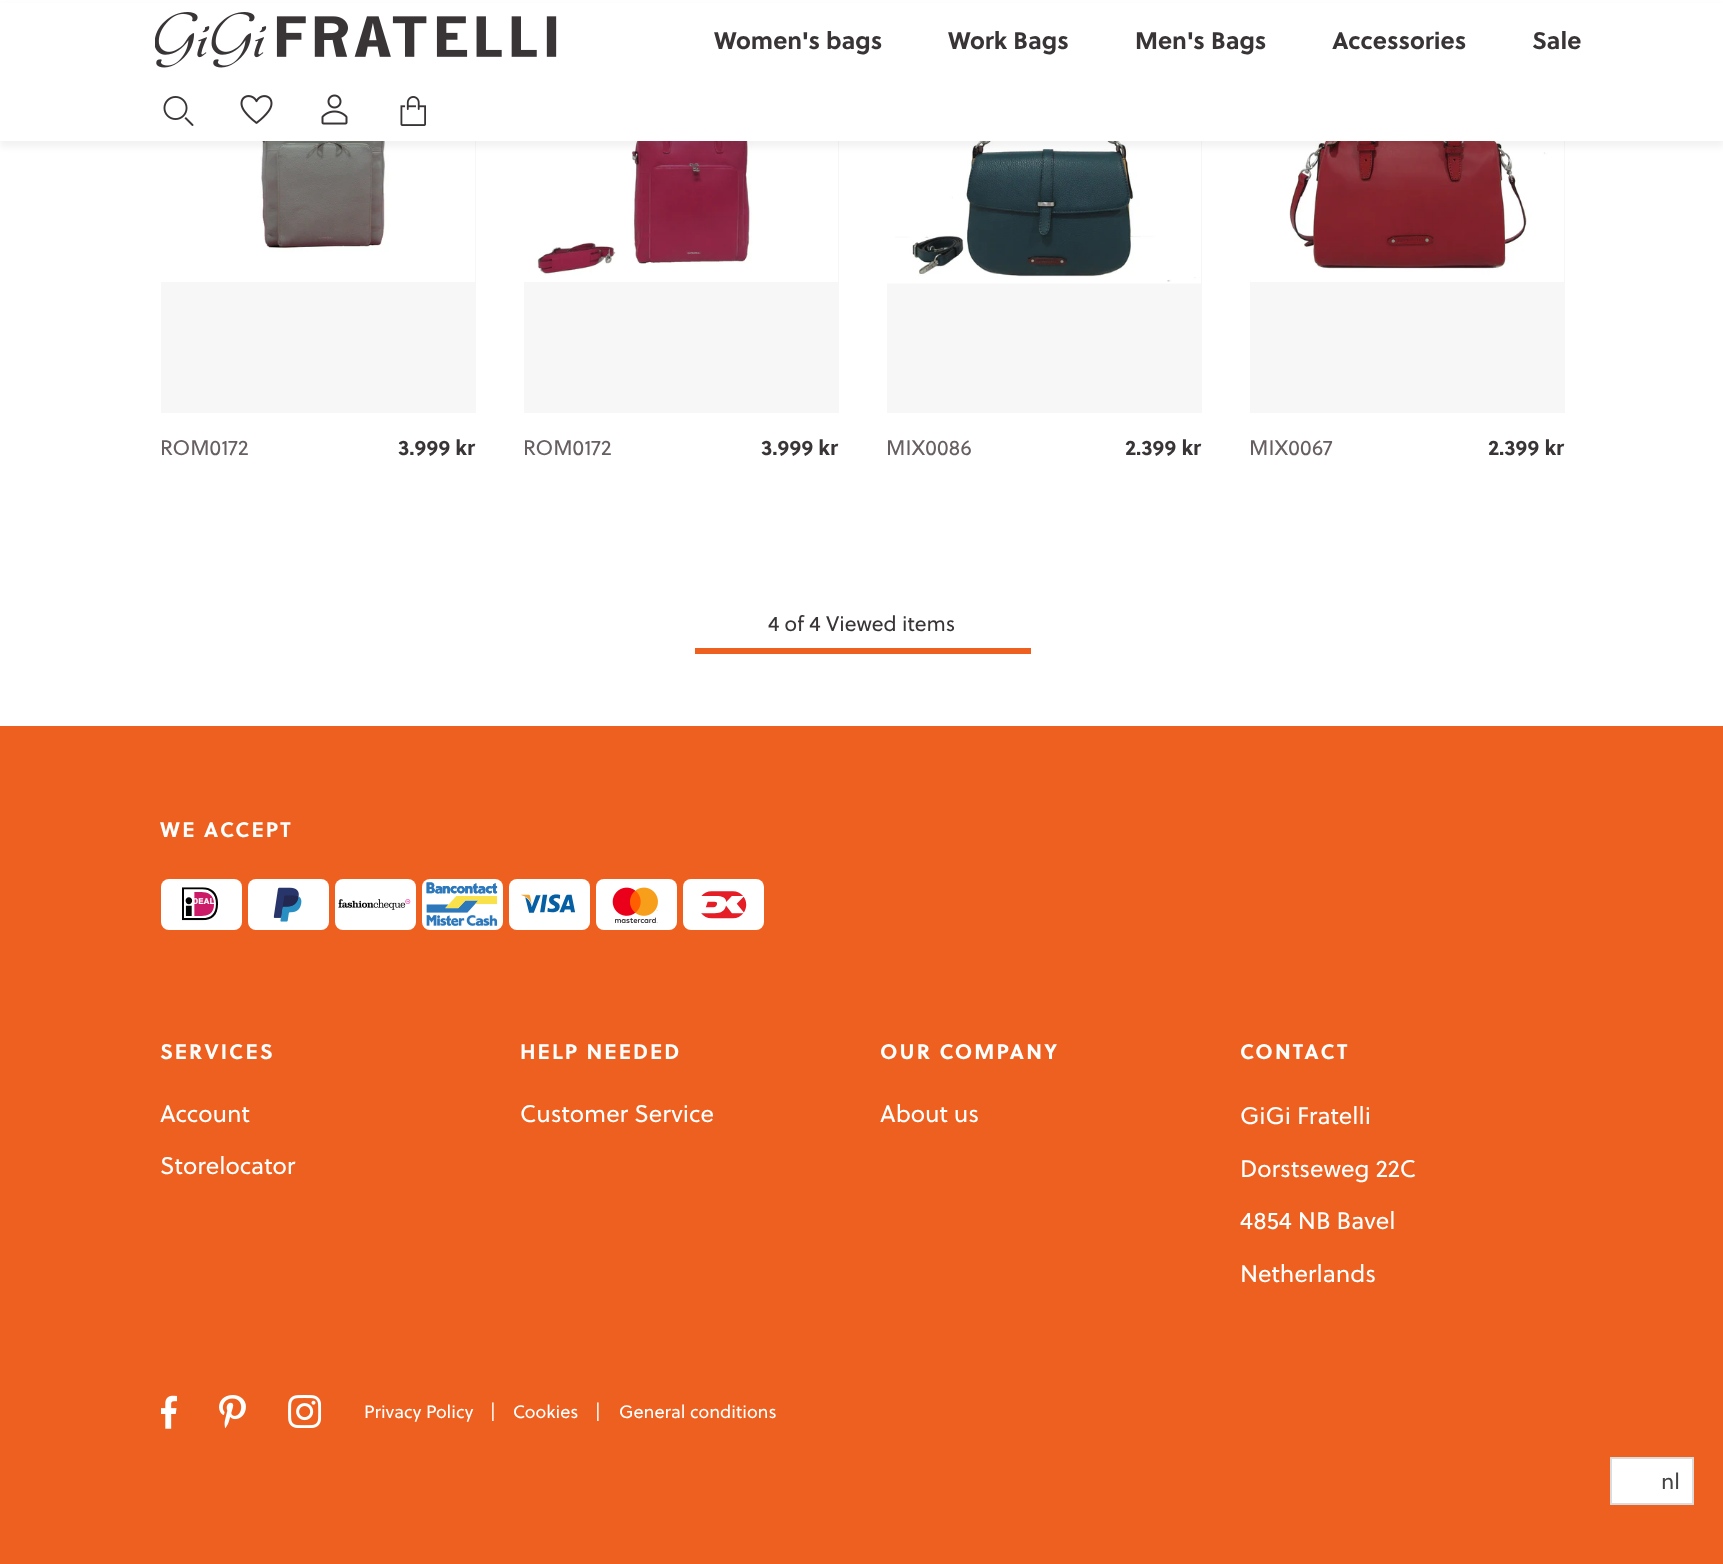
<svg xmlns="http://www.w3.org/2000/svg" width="1723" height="1564">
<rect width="100%" height="100%" fill="#fff"/>
<rect x="161" y="141" width="315" height="272" fill="#f7f7f7"/>
<image x="161" y="141" width="314" height="141" href="media/6.png"/>
<rect x="524" y="141" width="315" height="272" fill="#f7f7f7"/>
<image x="524" y="141" width="314" height="141" href="media/7.png"/>
<rect x="887" y="141" width="315" height="272" fill="#f7f7f7"/>
<image x="887" y="141" width="314" height="143" href="media/8.png"/>
<rect x="1250" y="141" width="315" height="272" fill="#f7f7f7"/>
<image x="1250" y="141" width="314" height="141" href="media/9.png"/>
<rect y="6" width="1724" height="141" fill="#0000000d" filter="blur(3px)"/>
<rect y="3" width="1723" height="138" fill="#fff"/>
<image x="155" y="12" width="402" height="56" href="media/1.png"/>
<text x="714" y="49" style="font-family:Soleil;font-size:24px;font-weight:bold;fill:#393536">Women's bags</text>
<text x="948" y="49" style="font-family:Soleil;font-size:24px;font-weight:bold;fill:#393536">Work Bags</text>
<text x="1135" y="49" style="font-family:Soleil;font-size:24px;font-weight:bold;fill:#393536">Men's Bags</text>
<text x="1332" y="49" style="font-family:Soleil;font-size:24px;font-weight:bold;fill:#393536">Accessories</text>
<text x="1532" y="49" style="font-family:Soleil;font-size:24px;font-weight:bold;fill:#393536">Sale</text>
<image x="163" y="96" width="31" height="30" href="media/2.png"/>
<image x="240" y="95" width="33" height="29" href="media/3.png"/>
<image x="321" y="94" width="27" height="31" href="media/4.png"/>
<image x="400" y="96" width="26" height="30" href="media/5.png"/>
<text x="160" y="455" style="font-family:Soleil;font-size:21px;fill:#675f61">ROM0172</text>
<text x="398" y="455" style="font-family:Soleil;font-size:21px;font-weight:bold;fill:#393536">3.999 kr</text>
<text x="523" y="455" style="font-family:Soleil;font-size:21px;fill:#675f61">ROM0172</text>
<text x="761" y="455" style="font-family:Soleil;font-size:21px;font-weight:bold;fill:#393536">3.999 kr</text>
<text x="886" y="455" style="font-family:Soleil;font-size:21px;fill:#675f61">MIX0086</text>
<text x="1125" y="455" style="font-family:Soleil;font-size:21px;font-weight:bold;fill:#393536">2.399 kr</text>
<text x="1249" y="455" style="font-family:Soleil;font-size:21px;fill:#675f61">MIX0067</text>
<text x="1488" y="455" style="font-family:Soleil;font-size:21px;font-weight:bold;fill:#393536">2.399 kr</text>
<text x="768" y="631" style="font-family:Soleil;font-size:21px;fill:#393536">4 of 4 Viewed items</text>
<rect x="695" y="648" width="336" height="6" fill="#ed601f"/>
<rect y="726" width="1723" height="838" fill="#ed601f"/>
<text x="160" y="837" style="font-family:Soleil;font-size:21px;font-weight:bold;letter-spacing:2.1px;fill:#fff">WE ACCEPT</text>
<rect x="161" y="879" width="81" height="51" rx="8" fill="#fff"/>
<image x="182" y="887" width="36" height="34" href="media/10.png"/>
<rect x="248" y="879" width="81" height="51" rx="8" fill="#fff"/>
<image x="273" y="887" width="29" height="35" href="media/11.png"/>
<rect x="335" y="879" width="81" height="51" rx="8" fill="#fff"/>
<image x="338" y="899" width="73" height="11" href="media/12.png"/>
<rect x="422" y="879" width="81" height="51" rx="8" fill="#fff"/>
<image x="426" y="882" width="72" height="44" href="media/13.png"/>
<rect x="509" y="879" width="81" height="51" rx="8" fill="#fff"/>
<image x="521" y="894" width="54" height="19" href="media/14.png"/>
<rect x="596" y="879" width="81" height="51" rx="8" fill="#fff"/>
<image x="612" y="887" width="46" height="37" href="media/15.png"/>
<rect x="683" y="879" width="81" height="51" rx="8" fill="#fff"/>
<image x="701" y="891" width="46" height="28" href="media/16.png"/>
<text x="160" y="1059" style="font-family:Soleil;font-size:21px;font-weight:bold;letter-spacing:2.1px;fill:#fff">SERVICES</text>
<text x="160" y="1122" style="font-family:Soleil;font-size:24px;fill:#fff">Account</text>
<text x="160" y="1174" style="font-family:Soleil;font-size:24px;fill:#fff">Storelocator</text>
<text x="520" y="1059" style="font-family:Soleil;font-size:21px;font-weight:bold;letter-spacing:2.1px;fill:#fff">HELP NEEDED</text>
<text x="520" y="1122" style="font-family:Soleil;font-size:24px;fill:#fff">Customer Service</text>
<text x="880" y="1059" style="font-family:Soleil;font-size:21px;font-weight:bold;letter-spacing:2.1px;fill:#fff">OUR COMPANY</text>
<text x="880" y="1122" style="font-family:Soleil;font-size:24px;fill:#fff">About us</text>
<text x="1240" y="1059" style="font-family:Soleil;font-size:21px;font-weight:bold;letter-spacing:2.1px;fill:#fff">CONTACT</text>
<text x="1240" y="1124" style="font-family:Soleil;font-size:24px;fill:#fff">GiGi Fratelli</text>
<text x="1240" y="1177" style="font-family:Soleil;font-size:24px;fill:#fff">Dorstseweg 22C</text>
<text x="1240" y="1229" style="font-family:Soleil;font-size:24px;fill:#fff">4854 NB Bavel</text>
<text x="1240" y="1282" style="font-family:Soleil;font-size:24px;fill:#fff">Netherlands</text>
<image x="161" y="1395" width="16" height="34" href="media/17.png"/>
<image x="219" y="1395" width="27" height="34" href="media/18.png"/>
<image x="288" y="1395" width="34" height="33" href="media/19.png"/>
<text x="364" y="1418" style="font-family:Soleil;font-size:18px;fill:#fff">Privacy Policy</text>
<text x="490" y="1418" style="font-family:Soleil;font-size:18px;fill:#fff">|</text>
<text x="513" y="1418" style="font-family:Soleil;font-size:18px;fill:#fff">Cookies</text>
<text x="595" y="1418" style="font-family:Soleil;font-size:18px;fill:#fff">|</text>
<text x="619" y="1418" style="font-family:Soleil;font-size:18px;fill:#fff">General conditions</text>
<rect x="1611" y="1458" width="82" height="46" fill="#fff" stroke="#dcdcdc" stroke-width="2"/>
<text x="1661" y="1489" style="font-family:Soleil;font-size:22px;fill:#444">nl</text>
</svg>
